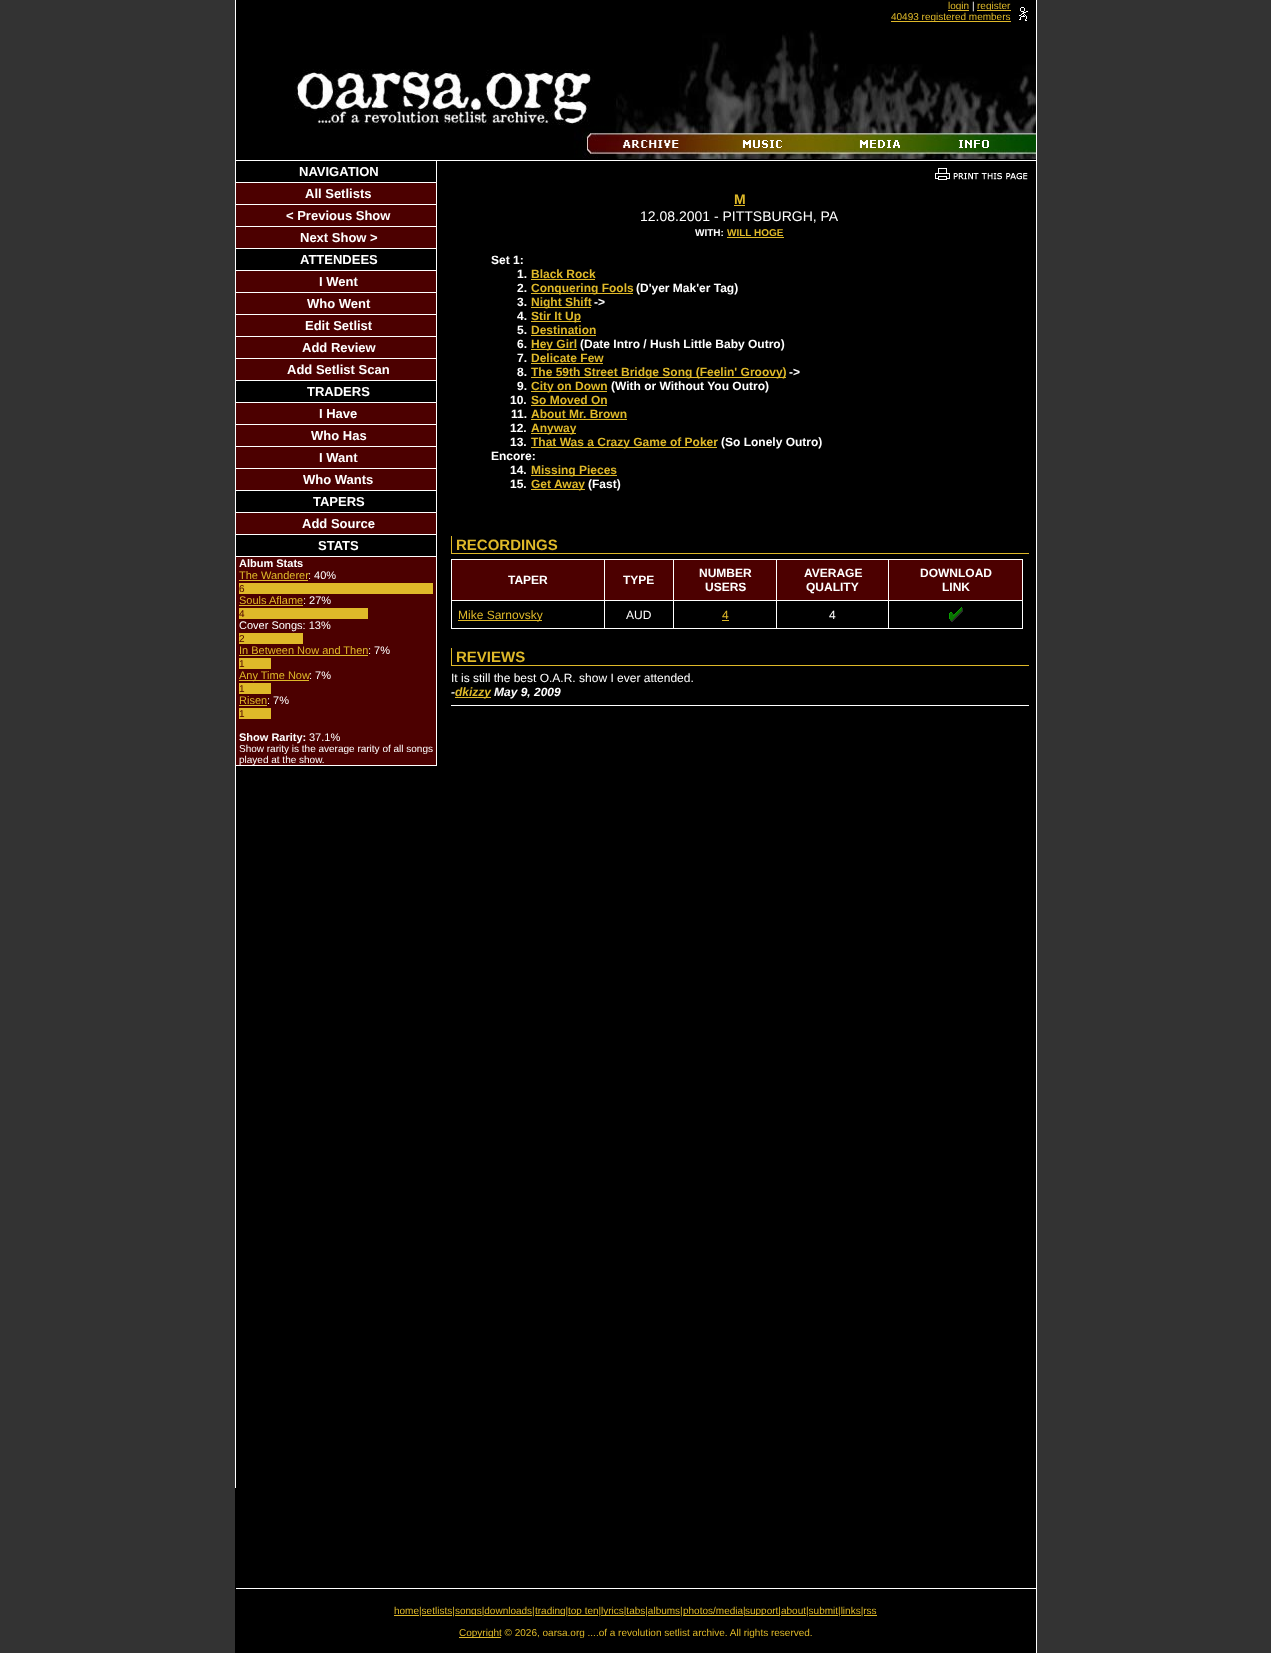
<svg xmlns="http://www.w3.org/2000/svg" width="1271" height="1653">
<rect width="100%" height="100%" fill="#333"/>
<rect x="236" width="800" height="1488" fill="#000"/>
<rect x="1036" width="1" height="1653" fill="#fff"/>
<rect x="235" width="1" height="1488" fill="#fff"/>
<rect x="948" y="10" width="21" height="1" fill="#dfb929"/>
<text x="948" y="9" style="font-family:Liberation Sans;font-size:10px;fill:#dfb929">login</text>
<text x="972" y="9" style="font-family:Liberation Sans;font-size:10px;fill:#fff">|</text>
<rect x="977" y="10" width="34" height="1" fill="#dfb929"/>
<text x="977" y="9" style="font-family:Liberation Sans;font-size:10px;fill:#dfb929">register</text>
<image x="1019" y="7" width="9" height="14" href="media/1.png"/>
<rect x="891" y="21" width="120" height="1" fill="#dfb929"/>
<text x="891" y="20" style="font-family:Liberation Sans;font-size:10px;fill:#dfb929">40493 registered members</text>
<rect x="236" y="160" width="800" height="1" fill="#fff"/>
<image x="294" y="30" width="742" height="130" href="media/2.png"/>
<rect x="236" y="183" width="200" height="582" fill="#4c0000"/>
<rect x="436" y="161" width="1" height="605" fill="#fff"/>
<rect x="236" y="182" width="200" height="1" fill="#fff"/>
<text x="299" y="176" style="font-family:Liberation Sans;font-size:13px;font-weight:bold;fill:#fff">NAVIGATION</text>
<rect x="236" y="204" width="200" height="1" fill="#fff"/>
<text x="305" y="198" style="font-family:Liberation Sans;font-size:13px;font-weight:bold;fill:#fff">All Setlists</text>
<rect x="236" y="226" width="200" height="1" fill="#fff"/>
<text x="286" y="220" style="font-family:Liberation Sans;font-size:13px;font-weight:bold;fill:#fff">&lt; Previous Show</text>
<rect x="236" y="248" width="200" height="1" fill="#fff"/>
<text x="300" y="242" style="font-family:Liberation Sans;font-size:13px;font-weight:bold;fill:#fff">Next Show &gt;</text>
<rect x="236" y="249" width="200" height="21" fill="#000"/>
<rect x="236" y="270" width="200" height="1" fill="#fff"/>
<text x="300" y="264" style="font-family:Liberation Sans;font-size:13px;font-weight:bold;fill:#fff">ATTENDEES</text>
<rect x="236" y="292" width="200" height="1" fill="#fff"/>
<text x="319" y="286" style="font-family:Liberation Sans;font-size:13px;font-weight:bold;fill:#fff">I Went</text>
<rect x="236" y="314" width="200" height="1" fill="#fff"/>
<text x="307" y="308" style="font-family:Liberation Sans;font-size:13px;font-weight:bold;fill:#fff">Who Went</text>
<rect x="236" y="336" width="200" height="1" fill="#fff"/>
<text x="305" y="330" style="font-family:Liberation Sans;font-size:13px;font-weight:bold;fill:#fff">Edit Setlist</text>
<rect x="236" y="358" width="200" height="1" fill="#fff"/>
<text x="302" y="352" style="font-family:Liberation Sans;font-size:13px;font-weight:bold;fill:#fff">Add Review</text>
<rect x="236" y="380" width="200" height="1" fill="#fff"/>
<text x="287" y="374" style="font-family:Liberation Sans;font-size:13px;font-weight:bold;fill:#fff">Add Setlist Scan</text>
<rect x="236" y="381" width="200" height="21" fill="#000"/>
<rect x="236" y="402" width="200" height="1" fill="#fff"/>
<text x="307" y="396" style="font-family:Liberation Sans;font-size:13px;font-weight:bold;fill:#fff">TRADERS</text>
<rect x="236" y="424" width="200" height="1" fill="#fff"/>
<text x="319" y="418" style="font-family:Liberation Sans;font-size:13px;font-weight:bold;fill:#fff">I Have</text>
<rect x="236" y="446" width="200" height="1" fill="#fff"/>
<text x="311" y="440" style="font-family:Liberation Sans;font-size:13px;font-weight:bold;fill:#fff">Who Has</text>
<rect x="236" y="468" width="200" height="1" fill="#fff"/>
<text x="319" y="462" style="font-family:Liberation Sans;font-size:13px;font-weight:bold;fill:#fff">I Want</text>
<rect x="236" y="490" width="200" height="1" fill="#fff"/>
<text x="303" y="484" style="font-family:Liberation Sans;font-size:13px;font-weight:bold;fill:#fff">Who Wants</text>
<rect x="236" y="491" width="200" height="21" fill="#000"/>
<rect x="236" y="512" width="200" height="1" fill="#fff"/>
<text x="313" y="506" style="font-family:Liberation Sans;font-size:13px;font-weight:bold;fill:#fff">TAPERS</text>
<rect x="236" y="534" width="200" height="1" fill="#fff"/>
<text x="302" y="528" style="font-family:Liberation Sans;font-size:13px;font-weight:bold;fill:#fff">Add Source</text>
<rect x="236" y="535" width="200" height="21" fill="#000"/>
<rect x="236" y="556" width="200" height="1" fill="#fff"/>
<text x="318" y="550" style="font-family:Liberation Sans;font-size:13px;font-weight:bold;fill:#fff">STATS</text>
<rect x="236" y="765" width="200" height="1" fill="#fff"/>
<text x="239" y="567" style="font-family:Liberation Sans;font-size:11px;font-weight:bold;fill:#fff">Album Stats</text>
<text x="239" y="579" style="font-family:Liberation Sans;font-size:11px;fill:#dfb929">The Wanderer</text>
<rect x="239" y="580" width="69" height="1" fill="#dfb929"/>
<text x="308" y="579" style="font-family:Liberation Sans;font-size:11px;fill:#fff">: 40%</text>
<rect x="239" y="583" width="194" height="11" fill="#dfb929"/>
<text x="239" y="592" style="font-family:Liberation Sans;font-size:10px;fill:#4c0000">6</text>
<text x="239" y="604" style="font-family:Liberation Sans;font-size:11px;fill:#dfb929">Souls Aflame</text>
<rect x="239" y="605" width="64" height="1" fill="#dfb929"/>
<text x="303" y="604" style="font-family:Liberation Sans;font-size:11px;fill:#fff">: 27%</text>
<rect x="239" y="608" width="129" height="11" fill="#dfb929"/>
<text x="239" y="617" style="font-family:Liberation Sans;font-size:10px;fill:#4c0000">4</text>
<text x="239" y="629" style="font-family:Liberation Sans;font-size:11px;fill:#fff">Cover Songs: 13%</text>
<rect x="239" y="633" width="64" height="11" fill="#dfb929"/>
<text x="239" y="642" style="font-family:Liberation Sans;font-size:10px;fill:#4c0000">2</text>
<text x="239" y="654" style="font-family:Liberation Sans;font-size:11px;fill:#dfb929">In Between Now and Then</text>
<rect x="239" y="655" width="129" height="1" fill="#dfb929"/>
<text x="368" y="654" style="font-family:Liberation Sans;font-size:11px;fill:#fff">: 7%</text>
<rect x="239" y="658" width="32" height="11" fill="#dfb929"/>
<text x="239" y="667" style="font-family:Liberation Sans;font-size:10px;fill:#4c0000">1</text>
<rect x="239" y="680" width="70" height="1" fill="#dfb929"/>
<text x="239" y="679" style="font-family:Liberation Sans;font-size:11px;fill:#dfb929">Any Time Now</text>
<text x="309" y="679" style="font-family:Liberation Sans;font-size:11px;fill:#fff">: 7%</text>
<rect x="239" y="683" width="32" height="11" fill="#dfb929"/>
<text x="239" y="692" style="font-family:Liberation Sans;font-size:10px;fill:#4c0000">1</text>
<text x="239" y="704" style="font-family:Liberation Sans;font-size:11px;fill:#dfb929">Risen</text>
<rect x="239" y="705" width="28" height="1" fill="#dfb929"/>
<text x="267" y="704" style="font-family:Liberation Sans;font-size:11px;fill:#fff">: 7%</text>
<rect x="239" y="708" width="32" height="11" fill="#dfb929"/>
<text x="239" y="717" style="font-family:Liberation Sans;font-size:10px;fill:#4c0000">1</text>
<text x="239" y="741" style="font-family:Liberation Sans;font-size:11px;font-weight:bold;fill:#fff">Show Rarity:</text>
<text x="309" y="741" style="font-family:Liberation Sans;font-size:11px;fill:#fff">37.1%</text>
<text x="239" y="752" style="font-family:Liberation Sans;font-size:10px;fill:#fff">Show rarity is the average rarity of all songs</text>
<text x="239" y="763" style="font-family:Liberation Sans;font-size:10px;fill:#fff">played at the show.</text>
<image x="935" y="168" width="93" height="12" href="media/3.png"/>
<text x="734" y="204" style="font-family:Liberation Sans;font-size:14px;font-weight:bold;fill:#dfb929">M</text>
<rect x="734" y="205" width="11" height="1" fill="#dfb929"/>
<text x="640" y="221" style="font-family:Liberation Sans;font-size:14px;fill:#fff">12.08.2001 - PITTSBURGH, PA</text>
<text x="695" y="236" style="font-family:Liberation Sans;font-size:10px;font-weight:bold;fill:#fff">WITH:</text>
<text x="727" y="236" style="font-family:Liberation Sans;font-size:10px;font-weight:bold;fill:#dfb929">WILL HOGE</text>
<rect x="727" y="237" width="57" height="1" fill="#dfb929"/>
<text x="491" y="264" style="font-family:Liberation Sans;font-size:12px;font-weight:bold;fill:#fff">Set 1:</text>
<text x="517" y="278" style="font-family:Liberation Sans;font-size:12px;font-weight:bold;fill:#fff">1.</text>
<text x="531" y="278" style="font-family:Liberation Sans;font-size:12px;font-weight:bold;fill:#dfb929">Black Rock</text>
<rect x="531" y="279" width="64" height="1" fill="#dfb929"/>
<text x="517" y="292" style="font-family:Liberation Sans;font-size:12px;font-weight:bold;fill:#fff">2.</text>
<rect x="531" y="293" width="102" height="1" fill="#dfb929"/>
<text x="531" y="292" style="font-family:Liberation Sans;font-size:12px;font-weight:bold;fill:#dfb929">Conquering Fools</text>
<text x="636" y="292" style="font-family:Liberation Sans;font-size:12px;font-weight:bold;fill:#fff">(D'yer Mak'er Tag)</text>
<text x="517" y="306" style="font-family:Liberation Sans;font-size:12px;font-weight:bold;fill:#fff">3.</text>
<rect x="531" y="307" width="60" height="1" fill="#dfb929"/>
<text x="531" y="306" style="font-family:Liberation Sans;font-size:12px;font-weight:bold;fill:#dfb929">Night Shift</text>
<text x="594" y="306" style="font-family:Liberation Sans;font-size:12px;font-weight:bold;fill:#fff">-&gt;</text>
<text x="517" y="320" style="font-family:Liberation Sans;font-size:12px;font-weight:bold;fill:#fff">4.</text>
<rect x="531" y="321" width="50" height="1" fill="#dfb929"/>
<text x="531" y="320" style="font-family:Liberation Sans;font-size:12px;font-weight:bold;fill:#dfb929">Stir It Up</text>
<text x="517" y="334" style="font-family:Liberation Sans;font-size:12px;font-weight:bold;fill:#fff">5.</text>
<text x="531" y="334" style="font-family:Liberation Sans;font-size:12px;font-weight:bold;fill:#dfb929">Destination</text>
<rect x="531" y="335" width="65" height="1" fill="#dfb929"/>
<text x="517" y="348" style="font-family:Liberation Sans;font-size:12px;font-weight:bold;fill:#fff">6.</text>
<rect x="531" y="349" width="46" height="1" fill="#dfb929"/>
<text x="531" y="348" style="font-family:Liberation Sans;font-size:12px;font-weight:bold;fill:#dfb929">Hey Girl</text>
<text x="580" y="348" style="font-family:Liberation Sans;font-size:12px;font-weight:bold;fill:#fff">(Date Intro / Hush Little Baby Outro)</text>
<text x="517" y="362" style="font-family:Liberation Sans;font-size:12px;font-weight:bold;fill:#fff">7.</text>
<text x="531" y="362" style="font-family:Liberation Sans;font-size:12px;font-weight:bold;fill:#dfb929">Delicate Few</text>
<rect x="531" y="363" width="72" height="1" fill="#dfb929"/>
<text x="517" y="376" style="font-family:Liberation Sans;font-size:12px;font-weight:bold;fill:#fff">8.</text>
<rect x="531" y="377" width="255" height="1" fill="#dfb929"/>
<text x="531" y="376" style="font-family:Liberation Sans;font-size:12px;font-weight:bold;fill:#dfb929">The 59th Street Bridge Song (Feelin' Groovy)</text>
<text x="789" y="376" style="font-family:Liberation Sans;font-size:12px;font-weight:bold;fill:#fff">-&gt;</text>
<text x="517" y="390" style="font-family:Liberation Sans;font-size:12px;font-weight:bold;fill:#fff">9.</text>
<rect x="531" y="391" width="76" height="1" fill="#dfb929"/>
<text x="531" y="390" style="font-family:Liberation Sans;font-size:12px;font-weight:bold;fill:#dfb929">City on Down</text>
<text x="611" y="390" style="font-family:Liberation Sans;font-size:12px;font-weight:bold;fill:#fff">(With or Without You Outro)</text>
<text x="510" y="404" style="font-family:Liberation Sans;font-size:12px;font-weight:bold;fill:#fff">10.</text>
<text x="531" y="404" style="font-family:Liberation Sans;font-size:12px;font-weight:bold;fill:#dfb929">So Moved On</text>
<rect x="531" y="405" width="76" height="1" fill="#dfb929"/>
<text x="511" y="418" style="font-family:Liberation Sans;font-size:12px;font-weight:bold;fill:#fff">11.</text>
<text x="531" y="418" style="font-family:Liberation Sans;font-size:12px;font-weight:bold;fill:#dfb929">About Mr. Brown</text>
<rect x="531" y="419" width="96" height="1" fill="#dfb929"/>
<text x="510" y="432" style="font-family:Liberation Sans;font-size:12px;font-weight:bold;fill:#fff">12.</text>
<rect x="531" y="433" width="45" height="1" fill="#dfb929"/>
<text x="531" y="432" style="font-family:Liberation Sans;font-size:12px;font-weight:bold;fill:#dfb929">Anyway</text>
<text x="510" y="446" style="font-family:Liberation Sans;font-size:12px;font-weight:bold;fill:#fff">13.</text>
<rect x="531" y="447" width="186" height="1" fill="#dfb929"/>
<text x="531" y="446" style="font-family:Liberation Sans;font-size:12px;font-weight:bold;fill:#dfb929">That Was a Crazy Game of Poker</text>
<text x="721" y="446" style="font-family:Liberation Sans;font-size:12px;font-weight:bold;fill:#fff">(So Lonely Outro)</text>
<text x="491" y="460" style="font-family:Liberation Sans;font-size:12px;font-weight:bold;fill:#fff">Encore:</text>
<text x="510" y="474" style="font-family:Liberation Sans;font-size:12px;font-weight:bold;fill:#fff">14.</text>
<rect x="531" y="475" width="86" height="1" fill="#dfb929"/>
<text x="531" y="474" style="font-family:Liberation Sans;font-size:12px;font-weight:bold;fill:#dfb929">Missing Pieces</text>
<text x="510" y="488" style="font-family:Liberation Sans;font-size:12px;font-weight:bold;fill:#fff">15.</text>
<rect x="531" y="489" width="54" height="1" fill="#dfb929"/>
<text x="531" y="488" style="font-family:Liberation Sans;font-size:12px;font-weight:bold;fill:#dfb929">Get Away</text>
<text x="588" y="488" style="font-family:Liberation Sans;font-size:12px;font-weight:bold;fill:#fff">(Fast)</text>
<rect x="451" y="553" width="578" height="1" fill="#dfb929"/>
<rect x="451" y="536" width="1" height="18" fill="#dfb929"/>
<text x="456" y="550" style="font-family:Liberation Sans;font-size:15px;font-weight:bold;fill:#dfb929">RECORDINGS</text>
<rect x="452" y="560" width="152" height="40" fill="#4c0000"/>
<rect x="888" y="559" width="135" height="1" fill="#fff"/>
<rect x="888" y="600" width="135" height="1" fill="#fff"/>
<rect x="1022" y="600" width="1" height="29" fill="#fff"/>
<rect x="888" y="628" width="135" height="1" fill="#fff"/>
<rect x="888" y="600" width="1" height="29" fill="#fff"/>
<rect x="776" y="600" width="113" height="1" fill="#fff"/>
<rect x="888" y="559" width="1" height="42" fill="#fff"/>
<rect x="776" y="559" width="113" height="1" fill="#fff"/>
<rect x="776" y="628" width="113" height="1" fill="#fff"/>
<rect x="776" y="600" width="1" height="29" fill="#fff"/>
<rect x="673" y="600" width="104" height="1" fill="#fff"/>
<rect x="776" y="559" width="1" height="42" fill="#fff"/>
<rect x="673" y="559" width="104" height="1" fill="#fff"/>
<rect x="673" y="628" width="104" height="1" fill="#fff"/>
<rect x="673" y="600" width="1" height="29" fill="#fff"/>
<rect x="604" y="600" width="70" height="1" fill="#fff"/>
<rect x="673" y="559" width="1" height="42" fill="#fff"/>
<rect x="604" y="559" width="70" height="1" fill="#fff"/>
<rect x="604" y="628" width="70" height="1" fill="#fff"/>
<rect x="604" y="600" width="1" height="29" fill="#fff"/>
<rect x="451" y="600" width="154" height="1" fill="#fff"/>
<rect x="604" y="559" width="1" height="42" fill="#fff"/>
<rect x="451" y="559" width="154" height="1" fill="#fff"/>
<rect x="451" y="628" width="154" height="1" fill="#fff"/>
<rect x="451" y="600" width="1" height="29" fill="#fff"/>
<rect x="451" y="559" width="1" height="42" fill="#fff"/>
<text x="508" y="584" style="font-family:Liberation Sans;font-size:12px;font-weight:bold;fill:#fff">TAPER</text>
<rect x="605" y="560" width="68" height="40" fill="#4c0000"/>
<text x="623" y="584" style="font-family:Liberation Sans;font-size:12px;font-weight:bold;fill:#fff">TYPE</text>
<rect x="674" y="560" width="102" height="40" fill="#4c0000"/>
<text x="699" y="577" style="font-family:Liberation Sans;font-size:12px;font-weight:bold;fill:#fff">NUMBER</text>
<text x="705" y="591" style="font-family:Liberation Sans;font-size:12px;font-weight:bold;fill:#fff">USERS</text>
<rect x="777" y="560" width="111" height="40" fill="#4c0000"/>
<text x="804" y="577" style="font-family:Liberation Sans;font-size:12px;font-weight:bold;fill:#fff">AVERAGE</text>
<text x="806" y="591" style="font-family:Liberation Sans;font-size:12px;font-weight:bold;fill:#fff">QUALITY</text>
<rect x="889" y="560" width="133" height="40" fill="#4c0000"/>
<rect x="1022" y="559" width="1" height="42" fill="#fff"/>
<text x="920" y="577" style="font-family:Liberation Sans;font-size:12px;font-weight:bold;fill:#fff">DOWNLOAD</text>
<text x="942" y="591" style="font-family:Liberation Sans;font-size:12px;font-weight:bold;fill:#fff">LINK</text>
<rect x="458" y="620" width="84" height="1" fill="#dfb929"/>
<text x="458" y="619" style="font-family:Liberation Sans;font-size:12px;fill:#dfb929">Mike Sarnovsky</text>
<text x="626" y="619" style="font-family:Liberation Sans;font-size:12px;fill:#fff">AUD</text>
<text x="722" y="619" style="font-family:Liberation Sans;font-size:12px;fill:#dfb929">4</text>
<rect x="722" y="620" width="7" height="1" fill="#dfb929"/>
<text x="829" y="619" style="font-family:Liberation Sans;font-size:12px;fill:#fff">4</text>
<image x="949" y="607" width="14" height="15" href="media/4.png"/>
<rect x="451" y="665" width="578" height="1" fill="#dfb929"/>
<rect x="451" y="648" width="1" height="18" fill="#dfb929"/>
<text x="456" y="662" style="font-family:Liberation Sans;font-size:15px;font-weight:bold;fill:#dfb929">REVIEWS</text>
<text x="451" y="682" style="font-family:Liberation Sans;font-size:12px;fill:#fff">It is still the best O.A.R. show I ever attended.</text>
<text x="451" y="696" style="font-family:Liberation Sans;font-size:12px;font-weight:bold;font-style:italic;fill:#fff">-</text>
<rect x="455" y="697" width="36" height="1" fill="#dfb929"/>
<text x="455" y="696" style="font-family:Liberation Sans;font-size:12px;font-weight:bold;font-style:italic;fill:#dfb929">dkizzy</text>
<text x="494" y="696" style="font-family:Liberation Sans;font-size:12px;font-weight:bold;font-style:italic;fill:#fff">May 9, 2009</text>
<rect x="451" y="705" width="578" height="1" fill="#fff"/>
<rect x="235" y="1488" width="801" height="165" fill="#000"/>
<rect x="236" y="1588" width="800" height="1" fill="#fff"/>
<rect x="394" y="1615" width="25" height="1" fill="#dfb929"/>
<text x="394" y="1614" style="font-family:Liberation Sans;font-size:10px;fill:#dfb929">home|setlists|</text>
<rect x="455" y="1615" width="27" height="1" fill="#dfb929"/>
<text x="455" y="1614" style="font-family:Liberation Sans;font-size:10px;fill:#dfb929">songs|downloads|</text>
<rect x="535" y="1615" width="30" height="1" fill="#dfb929"/>
<text x="535" y="1614" style="font-family:Liberation Sans;font-size:10px;fill:#dfb929">trading|</text>
<rect x="568" y="1615" width="30" height="1" fill="#dfb929"/>
<text x="568" y="1614" style="font-family:Liberation Sans;font-size:10px;fill:#dfb929">top ten|</text>
<rect x="601" y="1615" width="23" height="1" fill="#dfb929"/>
<text x="601" y="1614" style="font-family:Liberation Sans;font-size:10px;fill:#dfb929">lyrics|tabs|albums|</text>
<rect x="683" y="1615" width="60" height="1" fill="#dfb929"/>
<text x="683" y="1614" style="font-family:Liberation Sans;font-size:10px;fill:#dfb929">photos/media|</text>
<rect x="745" y="1615" width="34" height="1" fill="#dfb929"/>
<text x="745" y="1614" style="font-family:Liberation Sans;font-size:10px;fill:#dfb929">support|about|submit|links|rss</text>
<rect x="422" y="1615" width="30" height="1" fill="#dfb929"/>
<rect x="484" y="1615" width="48" height="1" fill="#dfb929"/>
<rect x="626" y="1615" width="19" height="1" fill="#dfb929"/>
<rect x="648" y="1615" width="32" height="1" fill="#dfb929"/>
<rect x="781" y="1615" width="25" height="1" fill="#dfb929"/>
<rect x="809" y="1615" width="29" height="1" fill="#dfb929"/>
<rect x="841" y="1615" width="20" height="1" fill="#dfb929"/>
<rect x="864" y="1615" width="13" height="1" fill="#dfb929"/>
<rect x="459" y="1637" width="42" height="1" fill="#dfb929"/>
<text x="459" y="1636" style="font-family:Liberation Sans;font-size:10px;fill:#dfb929">Copyright © 2026, oarsa.org ....of a revolution setlist archive. All rights reserved.</text>
</svg>
